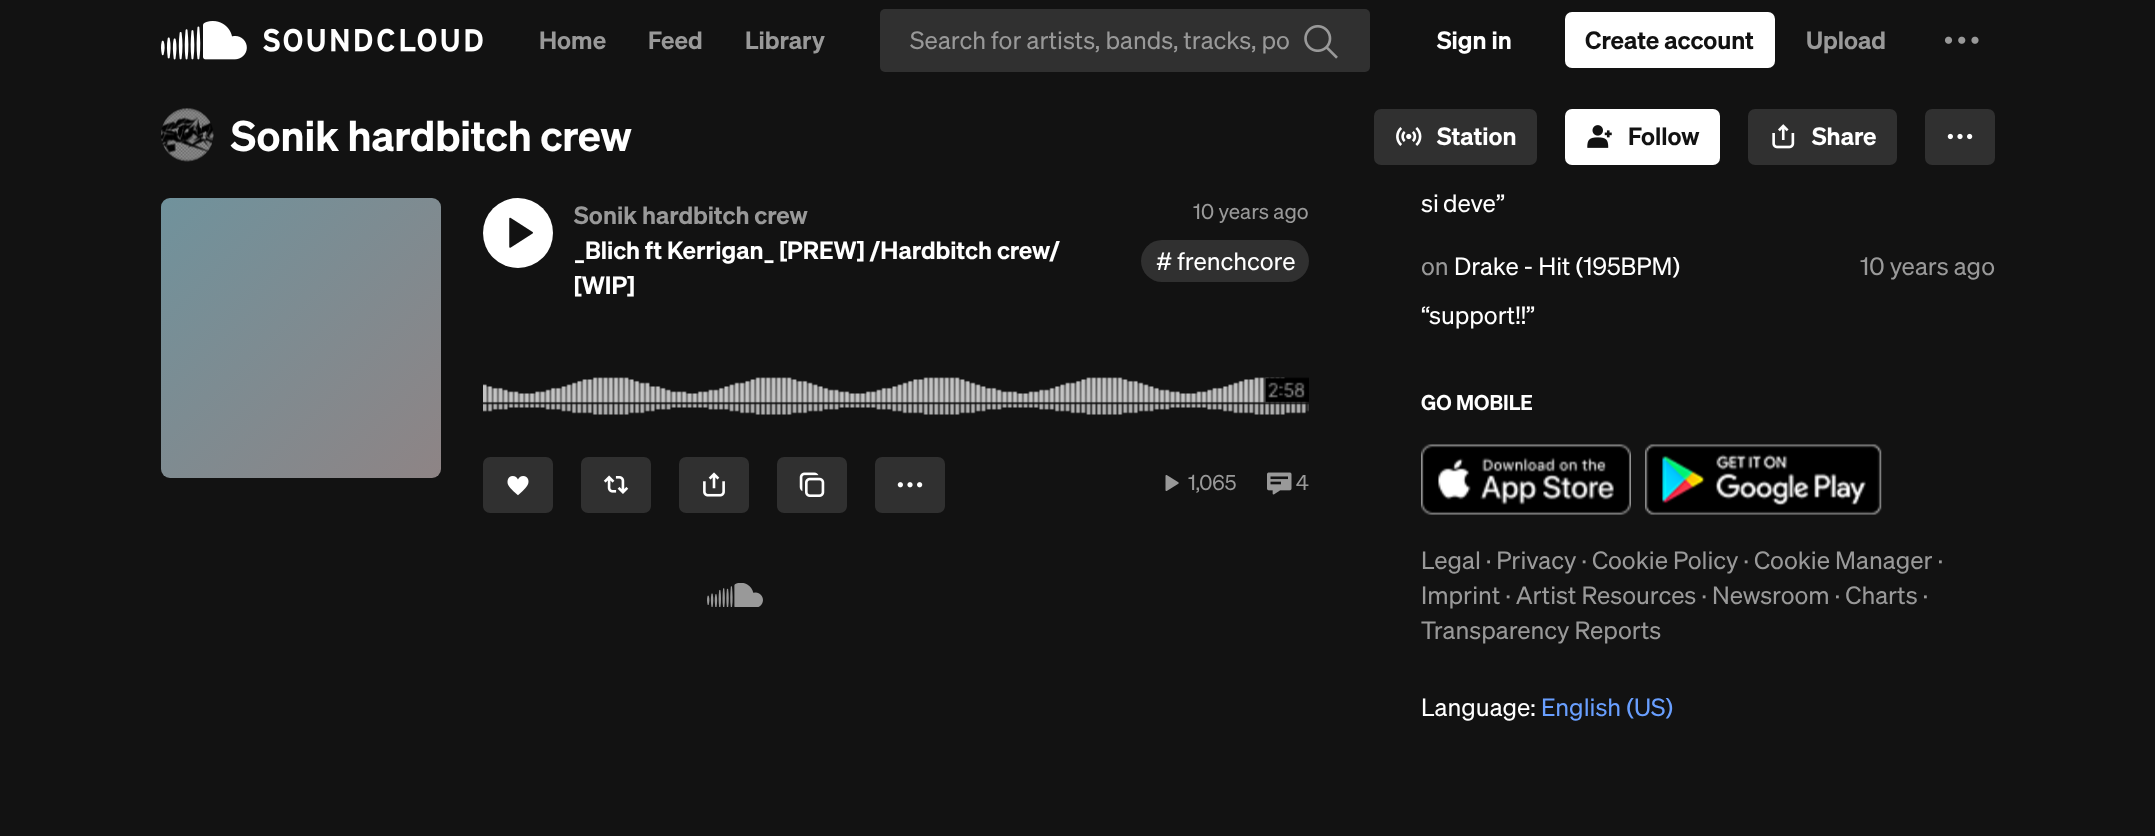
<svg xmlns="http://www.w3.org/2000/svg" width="2155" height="836">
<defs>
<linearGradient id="g1" gradientUnits="userSpaceOnUse" x1="161" y1="198" x2="441" y2="478"><stop offset="0" stop-color="#70929c"/><stop offset="1" stop-color="#8e8485"/></linearGradient>
</defs>
<rect width="100%" height="100%" fill="#121212"/>
<image x="161" y="21" width="322" height="39" href="media/1.png"/>
<text x="539" y="49" style="font-family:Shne;font-size:24.5px;font-weight:600;fill:#999">Home</text>
<text x="648" y="49" style="font-family:Shne;font-size:24.5px;font-weight:600;fill:#999">Feed</text>
<text x="745" y="49" style="font-family:Shne;font-size:24.5px;font-weight:600;fill:#999">Library</text>
<rect x="880" y="9" width="490" height="63" rx="5" fill="#303030"/>
<text x="910" y="49" style="font-family:Shne;font-size:24.5px;fill:#999">Search for artists, bands, tracks, po</text>
<image x="1304" y="24" width="34" height="35" href="media/2.png"/>
<text x="1437" y="49" style="font-family:Shne;font-size:24.5px;font-weight:600;fill:#fff">Sign in</text>
<rect x="1565" y="12" width="210" height="56" rx="7" fill="#fff"/>
<text x="1585" y="49" style="font-family:Shne;font-size:24.5px;font-weight:600;fill:#121212">Create account</text>
<text x="1806" y="49" style="font-family:Shne;font-size:24.5px;font-weight:600;fill:#999">Upload</text>
<image x="1944" y="36" width="35" height="8" href="media/3.png"/>
<image x="161" y="108" width="53" height="54" href="media/4.png"/>
<rect x="162" y="110" width="51" height="50" rx="25" fill="none" stroke="#1212121a" stroke-width="2"/>
<text x="231" y="151" style="font-family:Shne;font-size:42px;font-weight:600;fill:#fff">Sonik hardbitch crew</text>
<rect x="1374" y="109" width="163" height="56" rx="7" fill="#303030"/>
<image x="1396" y="127" width="26" height="19" href="media/5.png"/>
<text x="1437" y="145" style="font-family:Shne;font-size:24.5px;font-weight:600;fill:#fff">Station</text>
<rect x="1565" y="109" width="155" height="56" rx="7" fill="#fff"/>
<image x="1587" y="125" width="25" height="23" href="media/6.png"/>
<text x="1628" y="145" style="font-family:Shne;font-size:24.5px;font-weight:600;fill:#121212">Follow</text>
<rect x="1748" y="109" width="149" height="56" rx="7" fill="#303030"/>
<image x="1772" y="124" width="23" height="25" href="media/7.png"/>
<text x="1812" y="145" style="font-family:Shne;font-size:24.5px;font-weight:600;fill:#fff">Share</text>
<rect x="1925" y="109" width="70" height="56" rx="7" fill="#303030"/>
<image x="1947" y="133" width="26" height="7" href="media/8.png"/>
<rect x="161" y="198" width="280" height="280" rx="9" fill="url(#g1)"/>
<circle cx="518" cy="233" r="35" fill="#fff"/>
<image x="509" y="217" width="24" height="31" href="media/9.png"/>
<text x="574" y="224" style="font-family:Shne;font-size:24.5px;font-weight:600;fill:#999">Sonik hardbitch crew</text>
<text x="574" y="259" style="font-family:Shne;font-size:24.5px;font-weight:600;fill:#fff">_Blich ft Kerrigan_ [PREW] /Hardbitch crew/</text>
<text x="574" y="294" style="font-family:Shne;font-size:24.5px;font-weight:600;fill:#fff">[WIP]</text>
<text x="1193" y="219" style="font-family:Shne;font-size:21px;fill:#999">10 years ago</text>
<rect x="1141" y="240" width="168" height="42" rx="21" fill="#303030"/>
<text x="1156" y="270" style="font-family:Shne;font-size:24.5px;fill:#fff"># frenchcore</text>
<image x="483" y="377" width="826" height="38" href="media/10.png"/>
<image x="1263" y="377" width="46" height="26" href="media/11.png"/>
<rect x="483" y="457" width="70" height="56" rx="7" fill="#303030"/>
<image x="507" y="476" width="22" height="20" href="media/12.png"/>
<rect x="581" y="457" width="70" height="56" rx="7" fill="#303030"/>
<image x="603" y="475" width="26" height="19" href="media/13.png"/>
<rect x="679" y="457" width="70" height="56" rx="7" fill="#303030"/>
<image x="703" y="472" width="22" height="25" href="media/14.png"/>
<rect x="777" y="457" width="70" height="56" rx="7" fill="#303030"/>
<image x="799" y="472" width="26" height="25" href="media/15.png"/>
<rect x="875" y="457" width="70" height="56" rx="7" fill="#303030"/>
<image x="897" y="482" width="26" height="6" href="media/16.png"/>
<image x="1165" y="475" width="14" height="16" href="media/17.png"/>
<text x="1188" y="490" style="font-family:Shne;font-size:21px;fill:#999">1,065</text>
<image x="1267" y="472" width="25" height="23" href="media/18.png"/>
<text x="1296" y="490" style="font-family:Shne;font-size:21px;fill:#999">4</text>
<image x="707" y="583" width="56" height="24" href="media/19.png"/>
<text x="1421" y="212" word-spacing="-1" style="font-family:Shne;font-size:24.5px;fill:#fff">si deve</text>
<text x="1496" y="212" style="font-family:Shne;font-size:24.5px;fill:#fff">”</text>
<text x="1421" y="275" style="font-family:Shne;font-size:24.5px;fill:#999">on</text>
<text x="1454" y="275" style="font-family:Shne;font-size:24.5px;fill:#fff">Drake - Hit (195BPM)</text>
<text x="1860" y="275" style="font-family:Shne;font-size:24.5px;fill:#999">10 years ago</text>
<text x="1421" y="324" style="font-family:Shne;font-size:24.5px;fill:#fff">“</text>
<text x="1429" y="324" style="font-family:Shne;font-size:24.5px;fill:#fff">support!!”</text>
<text x="1421" y="410" style="font-family:Shne;font-size:21px;font-weight:600;fill:#fff">GO MOBILE</text>
<image x="1421" y="444" width="210" height="71" href="media/20.png"/>
<image x="1645" y="444" width="237" height="71" href="media/21.png"/>
<text x="1421" y="569" style="font-family:Shne;font-size:24.5px;fill:#999">Legal · Privacy · Cookie Policy · Cookie Manager ·</text>
<text x="1421" y="604" style="font-family:Shne;font-size:24.5px;fill:#999">Imprint · Artist Resources · Newsroom · Charts ·</text>
<text x="1421" y="639" style="font-family:Shne;font-size:24.5px;fill:#999">Transparency Reports</text>
<text x="1421" y="716" style="font-family:Shne;font-size:24.5px;fill:#fff">Language:</text>
<text x="1541" y="716" style="font-family:Shne;font-size:24.5px;fill:#699fff">English (US)</text>
</svg>
